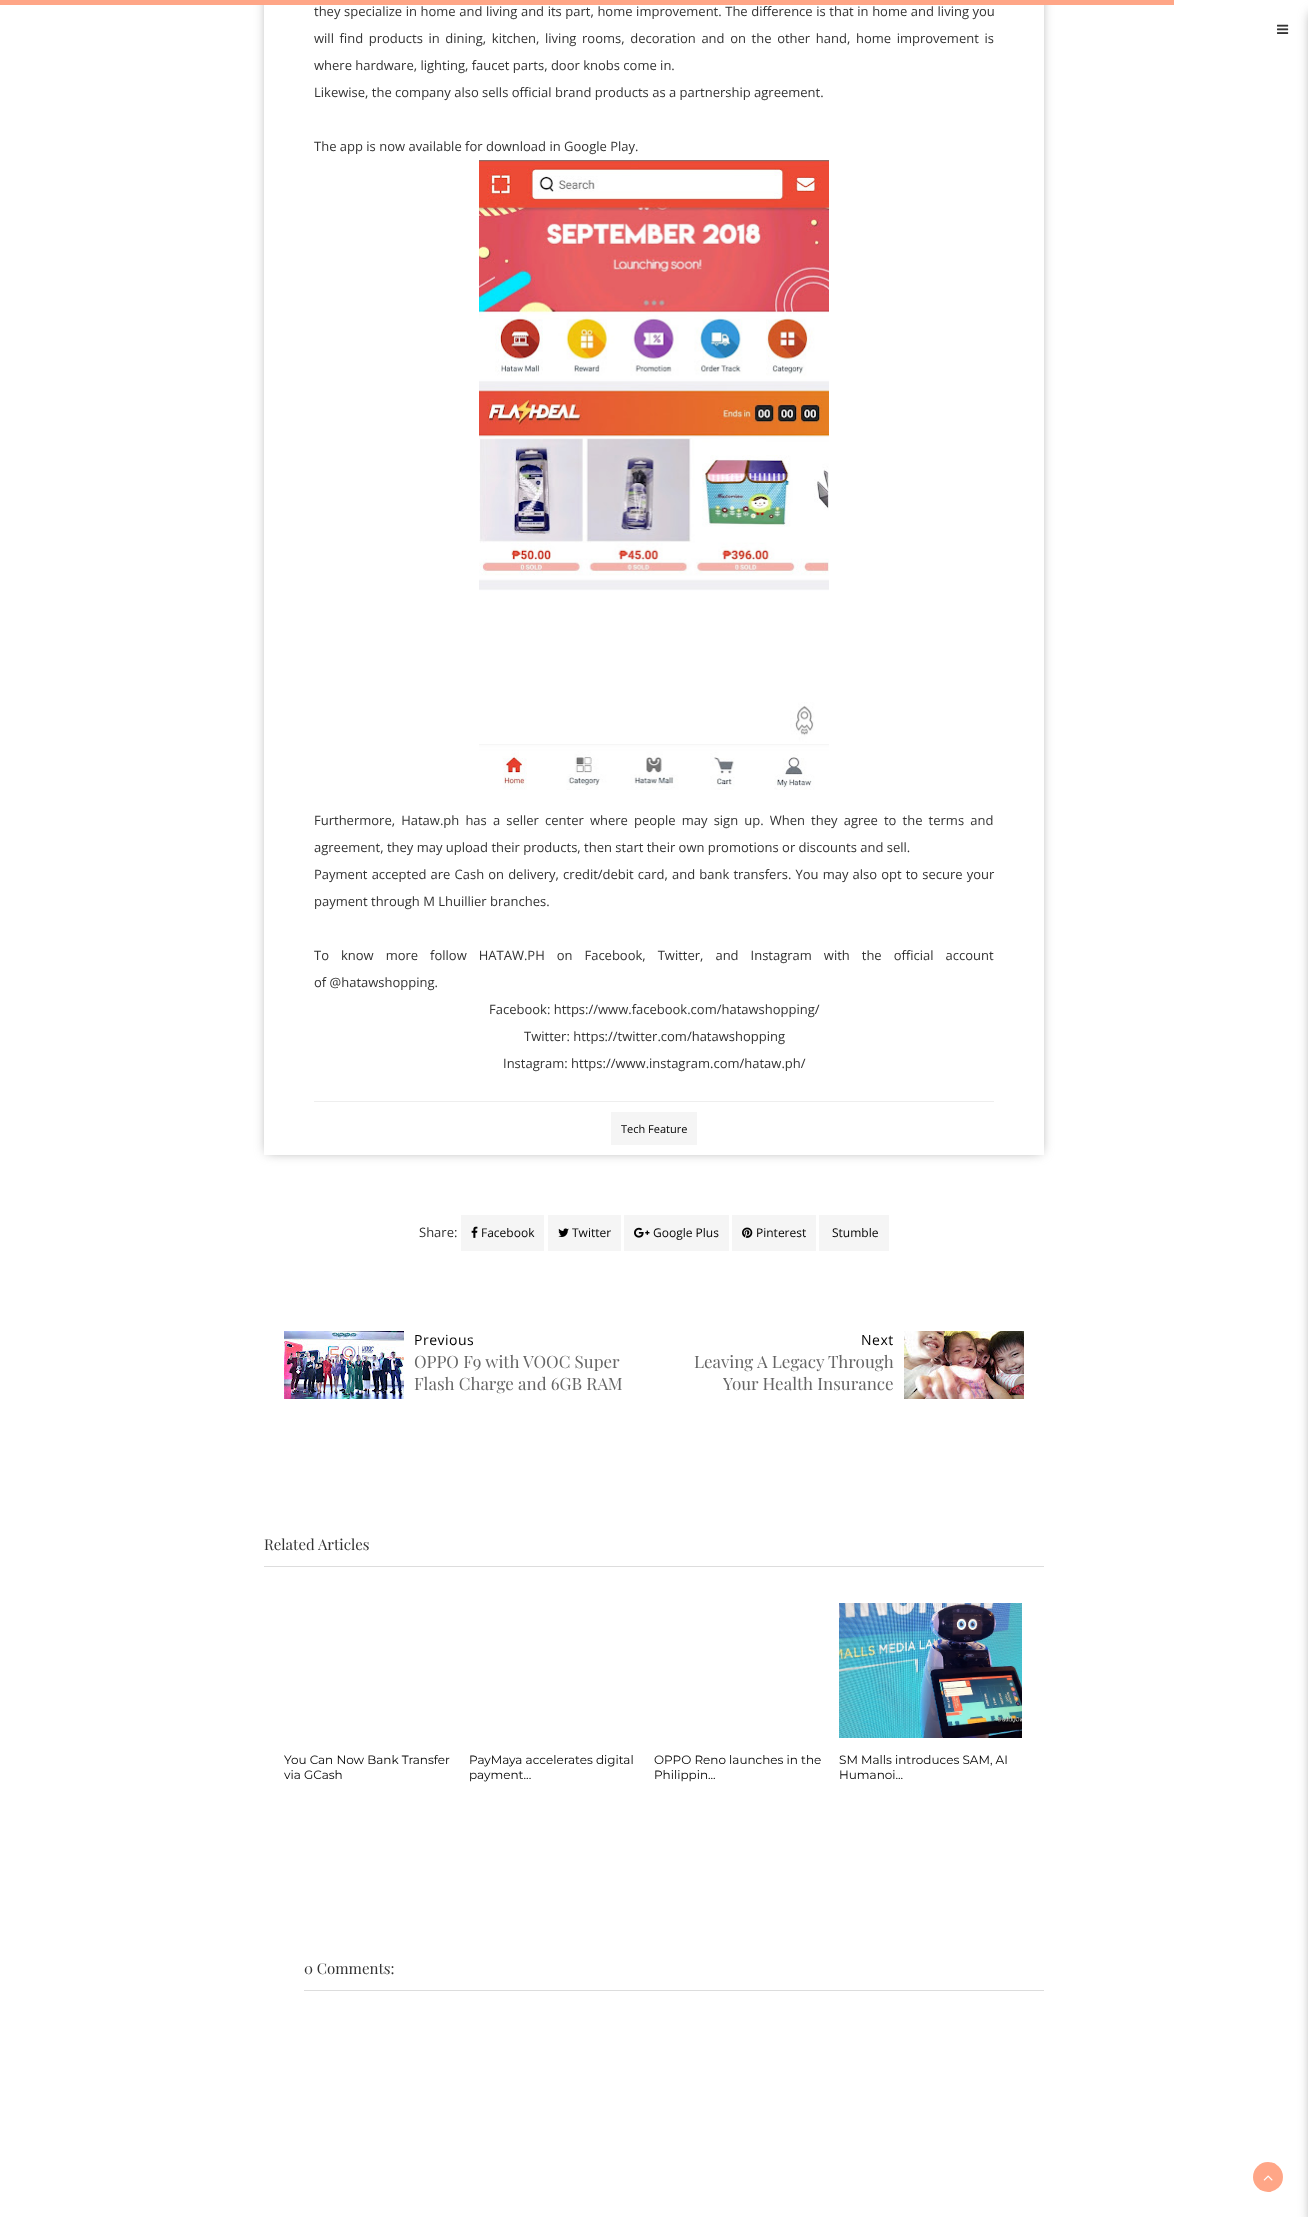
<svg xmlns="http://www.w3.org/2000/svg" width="1308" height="2217">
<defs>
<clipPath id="clip1"><path d="M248 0h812v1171h-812zm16-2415h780v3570h-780z" clip-rule="evenodd"/></clipPath>
</defs>
<rect width="100%" height="100%" fill="#fff"/>
<g clip-path="url(#clip1)">
<rect x="267" y="-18" width="774" height="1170" fill="#999" filter="blur(6px)"/>
</g>
<rect width="1174" height="5" fill="#ffa687"/>
<text x="314" y="16" word-spacing="0.2" style="font-family:Open Sans;font-size:13px;fill:#333">they specialize in home and living and its part, home improvement. The difference is that in home and living you</text>
<text x="314" y="43" word-spacing="2.25" style="font-family:Open Sans;font-size:13px;fill:#333">will find products in dining, kitchen, living rooms, decoration and on the other hand, home improvement is</text>
<text x="314" y="70" style="font-family:Open Sans;font-size:13px;fill:#333">where hardware, lighting, faucet parts, door knobs come in.</text>
<text x="314" y="97" style="font-family:Open Sans;font-size:13px;fill:#333">Likewise, the company also sells official brand products as a partnership agreement.</text>
<text x="314" y="151" style="font-family:Open Sans;font-size:13px;fill:#333">The app is now available for download in Google Play.</text>
<image x="479" y="160" width="350" height="630" href="media/1.png"/>
<text x="314" y="825" word-spacing="2.75" style="font-family:Open Sans;font-size:13px;fill:#333">Furthermore, Hataw.ph has a seller center where people may sign up. When they agree to the terms and</text>
<text x="314" y="852" style="font-family:Open Sans;font-size:13px;fill:#333">agreement, they may upload their products, then start their own promotions or discounts and sell.</text>
<text x="314" y="879" word-spacing="0.75" style="font-family:Open Sans;font-size:13px;fill:#333">Payment accepted are Cash on delivery, credit/debit card, and bank transfers. You may also opt to secure your</text>
<text x="314" y="906" style="font-family:Open Sans;font-size:13px;fill:#333">payment through M Lhuillier branches.</text>
<text x="314" y="960" word-spacing="8.6" style="font-family:Open Sans;font-size:13px;fill:#333">To know more follow HATAW.PH on Facebook, Twitter, and Instagram with the official account</text>
<text x="314" y="987" style="font-family:Open Sans;font-size:13px;fill:#333">of @hatawshopping.</text>
<text x="489" y="1014" style="font-family:Open Sans;font-size:13px;fill:#333">Facebook: https://www.facebook.com/hatawshopping/</text>
<text x="524" y="1041" style="font-family:Open Sans;font-size:13px;fill:#333">Twitter: https://twitter.com/hatawshopping</text>
<text x="503" y="1068" style="font-family:Open Sans;font-size:13px;fill:#333">Instagram: https://www.instagram.com/hataw.ph/</text>
<rect x="314" y="1101" width="680" height="1" fill="#eee"/>
<rect x="611" y="1112" width="86" height="33" fill="#f5f5f5"/>
<text x="621" y="1133" style="font-family:Open Sans;font-size:11px;fill:#000">Tech Feature</text>
<text x="419" y="1237" style="font-family:Open Sans;font-size:13px;fill:#333">Share:</text>
<rect x="461" y="1215" width="83" height="36" fill="#f5f5f5"/>
<image x="471" y="1226" width="7" height="12" href="media/2.png"/>
<text x="481" y="1237" style="font-family:Open Sans;font-size:12px;fill:#000">Facebook</text>
<rect x="548" y="1215" width="73" height="36" fill="#f5f5f5"/>
<image x="558" y="1228" width="11" height="9" href="media/3.png"/>
<text x="572" y="1237" style="font-family:Open Sans;font-size:12px;fill:#000">Twitter</text>
<rect x="624" y="1215" width="105" height="36" fill="#f5f5f5"/>
<image x="634" y="1227" width="16" height="11" href="media/4.png"/>
<text x="653" y="1237" style="font-family:Open Sans;font-size:12px;fill:#000">Google Plus</text>
<rect x="732" y="1215" width="84" height="36" fill="#f5f5f5"/>
<image x="742" y="1227" width="11" height="11" href="media/5.png"/>
<text x="756" y="1237" style="font-family:Open Sans;font-size:12px;fill:#000">Pinterest</text>
<rect x="819" y="1215" width="70" height="36" fill="#f5f5f5"/>
<text x="832" y="1237" style="font-family:Open Sans;font-size:12px;fill:#000">Stumble</text>
<image x="284" y="1331" width="120" height="68" href="media/6.png"/>
<text x="414" y="1345" style="font-family:Open Sans;font-size:14px;letter-spacing:0.5px;fill:#000">Previous</text>
<text x="414" y="1368" style="font-family:Playfair Display;font-size:17px;fill:#666">OPPO F9 with VOOC Super</text>
<text x="414" y="1390" style="font-family:Playfair Display;font-size:17px;fill:#666">Flash Charge and 6GB RAM</text>
<text x="861" y="1345" style="font-family:Open Sans;font-size:14px;letter-spacing:0.5px;fill:#000">Next</text>
<text x="694" y="1368" style="font-family:Playfair Display;font-size:17px;fill:#666">Leaving A Legacy Through</text>
<text x="723" y="1390" style="font-family:Playfair Display;font-size:17px;fill:#666">Your Health Insurance</text>
<image x="904" y="1331" width="120" height="68" href="media/7.png"/>
<rect x="264" y="1566" width="780" height="1" fill="#ddd"/>
<text x="264" y="1550" style="font-family:Playfair Display;font-size:15px;fill:#333">Related Articles</text>
<text x="284" y="1764" style="font-family:Montserrat;font-size:12px;fill:#000">You Can Now Bank Transfer</text>
<text x="284" y="1779" style="font-family:Montserrat;font-size:12px;fill:#000">via GCash</text>
<text x="469" y="1764" style="font-family:Montserrat;font-size:12px;fill:#000">PayMaya accelerates digital</text>
<text x="469" y="1779" style="font-family:Montserrat;font-size:12px;fill:#000">payment...</text>
<text x="654" y="1764" style="font-family:Montserrat;font-size:12px;fill:#000">OPPO Reno launches in the</text>
<text x="654" y="1779" style="font-family:Montserrat;font-size:12px;fill:#000">Philippin...</text>
<image x="839" y="1603" width="183" height="135" href="media/8.png"/>
<text x="839" y="1764" style="font-family:Montserrat;font-size:12px;fill:#000">SM Malls introduces SAM, AI</text>
<text x="839" y="1779" style="font-family:Montserrat;font-size:12px;fill:#000">Humanoi...</text>
<rect x="304" y="1990" width="740" height="1" fill="#ddd"/>
<text x="304" y="1974" style="font-family:Playfair Display;font-size:15px;fill:#333">0 Comments:</text>
<image x="1277" y="24" width="12" height="10" href="media/9.png"/>
<rect x="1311" y="13" width="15" height="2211" fill="#999" filter="blur(6px)"/>
<circle cx="1268" cy="2177" r="15" fill="#ffa687"/>
<image x="1263" y="2175" width="10" height="6" href="media/10.png"/>
</svg>
